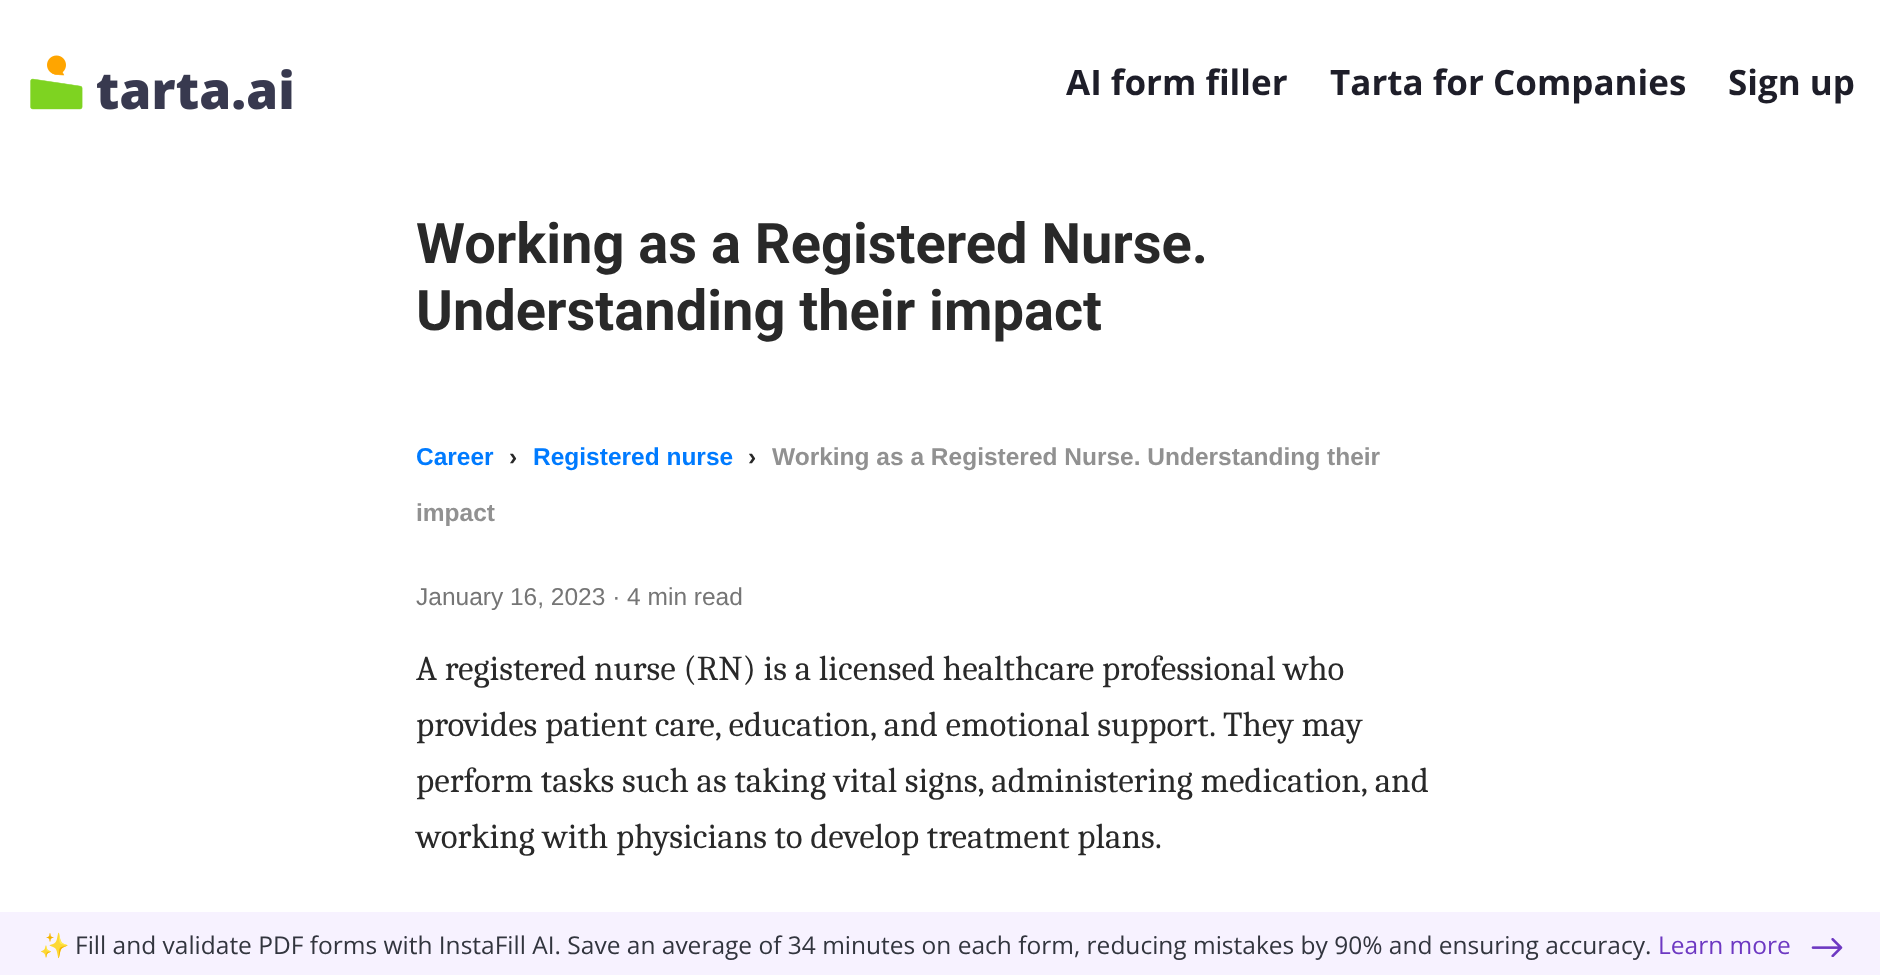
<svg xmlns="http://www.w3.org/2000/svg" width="1880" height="975">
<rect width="100%" height="100%" fill="#fff"/>
<image x="30" y="55" width="262" height="55" href="media/1.png"/>
<text x="1066" y="95" style="font-family:Open Sans;font-size:35px;font-weight:bold;fill:#1e1e29">AI form filler</text>
<text x="1330" y="95" style="font-family:Open Sans;font-size:35px;font-weight:bold;fill:#1e1e29">Tarta for Companies</text>
<text x="1728" y="95" style="font-family:Open Sans;font-size:35px;font-weight:bold;fill:#1e1e29">Sign up</text>
<text x="416" y="263" style="font-family:Roboto;font-size:56px;font-weight:bold;fill:#292929">Working as a Registered Nurse.</text>
<text x="416" y="330" style="font-family:Roboto;font-size:56px;font-weight:bold;fill:#292929">Understanding their impact</text>
<text x="416" y="465" style="font-family:Liberation Sans;font-size:24.5px;font-weight:bold;fill:#007bff">Career</text>
<text x="509" y="465" style="font-family:Liberation Sans;font-size:24.5px;font-weight:bold;fill:#292929">›</text>
<text x="533" y="465" style="font-family:Liberation Sans;font-size:24.5px;font-weight:bold;fill:#007bff">Registered nurse</text>
<text x="748" y="465" style="font-family:Liberation Sans;font-size:24.5px;font-weight:bold;fill:#292929">›</text>
<text x="772" y="465" style="font-family:Liberation Sans;font-size:24.5px;font-weight:bold;fill:#919191">Working as a Registered Nurse. Understanding their</text>
<text x="416" y="521" style="font-family:Liberation Sans;font-size:24.5px;font-weight:bold;fill:#919191">impact</text>
<text x="416" y="605" style="font-family:Liberation Sans;font-size:24.5px;fill:#757575">January 16, 2023 · 4 min read</text>
<text x="416" y="680" style="font-family:Caladea;font-size:35px;fill:#292929">A registered nurse (RN) is a licensed healthcare professional who</text>
<text x="416" y="736" style="font-family:Caladea;font-size:35px;fill:#292929">provides patient care, education, and emotional support. They may</text>
<text x="416" y="792" style="font-family:Caladea;font-size:35px;fill:#292929">perform tasks such as taking vital signs, administering medication, and</text>
<text x="416" y="848" style="font-family:Caladea;font-size:35px;fill:#292929">working with physicians to develop treatment plans.</text>
<rect y="912" width="1880" height="63" fill="#f7f2ff"/>
<text x="39" y="954" style="font-family:Noto Color Emoji;font-size:24.5px;fill:#32353e">✨</text>
<text x="75" y="954" style="font-family:Open Sans;font-size:24.5px;fill:#32353e">Fill and validate PDF forms with InstaFill AI. Save an average of 34 minutes on each form, reducing mistakes by 90% and ensuring accuracy.</text>
<text x="1658" y="954" style="font-family:Open Sans;font-size:24.5px;fill:#6d38c2">Learn more</text>
<image x="1811" y="938" width="32" height="19" href="media/2.png"/>
</svg>
